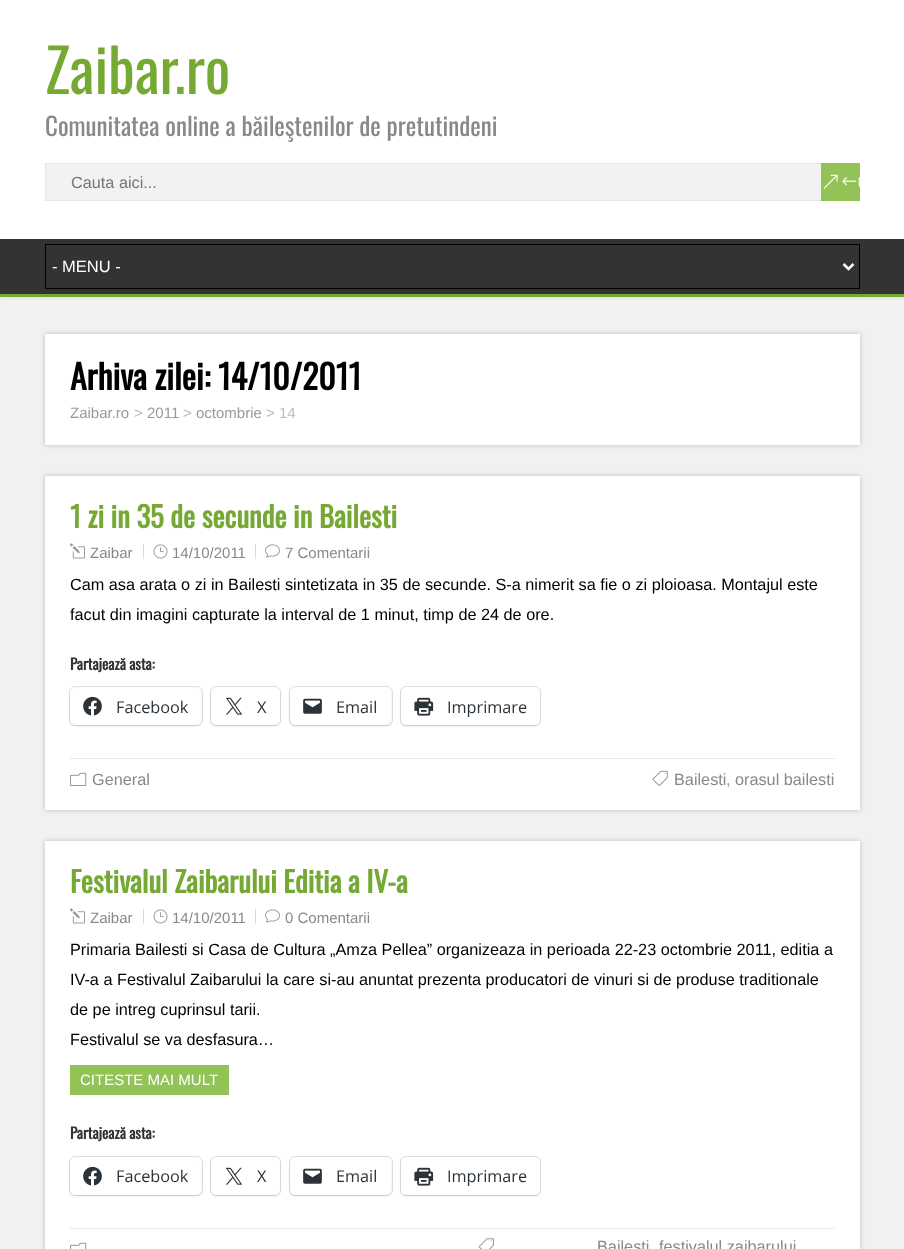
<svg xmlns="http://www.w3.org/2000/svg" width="904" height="1249">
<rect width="100%" height="100%" fill="#f1f1f1"/>
<rect width="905" height="296" fill="#bbb" filter="blur(2px)"/>
<rect width="904" height="239" fill="#fff"/>
<text x="45" y="94" style="font-family:Oswald;font-size:60px;fill:#76a934">Zaibar.ro</text>
<text x="45" y="136" style="font-family:Oswald;font-size:25px;fill:#888">Comunitatea online a băileştenilor de pretutindeni</text>
<rect x="46" y="164" width="775" height="36" fill="#f2f2f2"/>
<rect x="45.5" y="163.5" width="808" height="37" fill="none" stroke="#e6e6e6"/>
<text x="71" y="188" style="font-family:Liberation Sans;font-size:16.25px;fill:#757575">Cauta aici...</text>
<rect x="821" y="163" width="39" height="38" fill="#93c256"/>
<image x="823" y="174" width="37" height="15" href="media/1.png"/>
<rect y="239" width="904" height="55" fill="#333"/>
<rect y="294" width="904" height="3" fill="#76a934"/>
<rect x="45.5" y="244.5" width="814" height="44" fill="none" stroke="#000"/>
<path d="M843.5 264l5 5l5-5" fill="none" stroke="#fff" stroke-width="2.5"/>
<text x="52" y="272" style="font-family:Liberation Sans;font-size:16.5px;fill:#fff">- MENU -</text>
<rect x="45" y="334" width="815" height="111" fill="#bbb" filter="blur(2px)"/>
<rect x="45" y="334" width="815" height="111" fill="#fff"/>
<text x="70" y="390" style="font-family:Oswald;font-size:33.75px;font-weight:bold;fill:#000">Arhiva zilei: 14/10/2011</text>
<text x="70" y="418" style="font-family:Liberation Sans;font-size:15px;fill:#999">Zaibar.ro</text>
<text x="134" y="418" style="font-family:Liberation Sans;font-size:15px;fill:#bbb">&gt;</text>
<text x="147" y="418" style="font-family:Liberation Sans;font-size:15px;fill:#999">2011</text>
<text x="183" y="418" style="font-family:Liberation Sans;font-size:15px;fill:#bbb">&gt;</text>
<text x="196" y="418" style="font-family:Liberation Sans;font-size:15px;fill:#999">octombrie</text>
<text x="266" y="418" style="font-family:Liberation Sans;font-size:15px;fill:#bbb">&gt; 14</text>
<rect x="45" y="476" width="815" height="334" fill="#bbb" filter="blur(2px)"/>
<rect x="45" y="476" width="815" height="334" fill="#fff"/>
<text x="70" y="528" style="font-family:Oswald;font-size:28.75px;font-weight:bold;fill:#76a934">1 zi in 35 de secunde in Bailesti</text>
<image x="70" y="543" width="15" height="16" href="media/2.png"/>
<text x="90" y="558" style="font-family:Liberation Sans;font-size:15px;fill:#888">Zaibar</text>
<image x="153" y="544" width="15" height="15" href="media/3.png"/>
<text x="172" y="558" style="font-family:Liberation Sans;font-size:15px;fill:#888">14/10/2011</text>
<rect x="143" y="544" width="1" height="15" fill="#dbdbdb"/>
<image x="265" y="544" width="15" height="14" href="media/4.png"/>
<text x="285" y="558" style="font-family:Liberation Sans;font-size:15px;fill:#888">7 Comentarii</text>
<rect x="255" y="544" width="1" height="15" fill="#dbdbdb"/>
<text x="70" y="590" style="font-family:Liberation Sans;font-size:16.25px;fill:#000">Cam asa arata o zi in Bailesti sintetizata in 35 de secunde. S-a nimerit sa fie o zi ploioasa. Montajul este</text>
<text x="70" y="620" style="font-family:Liberation Sans;font-size:16.25px;fill:#000">facut din imagini capturate la interval de 1 minut, timp de 24 de ore.</text>
<text x="70" y="670" style="font-family:Oswald;font-size:15px;font-weight:bold;fill:#333">Partajează asta:</text>
<rect x="69.5" y="686.5" width="133" height="39" rx="5.5" fill="none" stroke="#e0e0e0"/>
<rect x="70" y="689" width="131" height="37" rx="5" fill="#0000001f" filter="blur(1px)"/>
<rect x="70" y="688" width="131" height="37" rx="5" fill="#fff"/>
<image x="83" y="696" width="19" height="20" href="media/5.png"/>
<text x="116" y="713" style="font-family:Open Sans;font-size:16.25px;fill:#2c3338">Facebook</text>
<rect x="210.5" y="686.5" width="70" height="39" rx="5.5" fill="none" stroke="#e0e0e0"/>
<rect x="211" y="689" width="69" height="37" rx="5" fill="#0000001f" filter="blur(1px)"/>
<rect x="211" y="688" width="69" height="37" rx="5" fill="#fff"/>
<image x="225" y="697" width="18" height="18" href="media/6.png"/>
<text x="257" y="713" style="font-family:Open Sans;font-size:16.25px;fill:#2c3338">X</text>
<rect x="289.5" y="686.5" width="103" height="39" rx="5.5" fill="none" stroke="#e0e0e0"/>
<rect x="290" y="689" width="101" height="37" rx="5" fill="#0000001f" filter="blur(1px)"/>
<rect x="290" y="688" width="101" height="37" rx="5" fill="#fff"/>
<image x="303" y="698" width="19" height="16" href="media/7.png"/>
<text x="336" y="713" style="font-family:Open Sans;font-size:16.25px;fill:#2c3338">Email</text>
<rect x="400.5" y="686.5" width="140" height="39" rx="5.5" fill="none" stroke="#e0e0e0"/>
<rect x="401" y="689" width="139" height="37" rx="5" fill="#0000001f" filter="blur(1px)"/>
<rect x="401" y="688" width="139" height="37" rx="5" fill="#fff"/>
<image x="414" y="697" width="20" height="19" href="media/8.png"/>
<text x="447" y="713" style="font-family:Open Sans;font-size:16.25px;fill:#2c3338">Imprimare</text>
<rect x="70" y="758" width="765" height="1" fill="#e8e8e8"/>
<image x="70" y="772" width="17" height="14" href="media/9.png"/>
<text x="92" y="785" style="font-family:Liberation Sans;font-size:16.25px;fill:#888">General</text>
<image x="652" y="770" width="16" height="16" href="media/10.png"/>
<text x="674" y="785" style="font-family:Liberation Sans;font-size:16.25px;fill:#888">Bailesti</text>
<text x="726" y="785" style="font-family:Liberation Sans;font-size:16.25px;fill:#999">,</text>
<text x="735" y="785" style="font-family:Liberation Sans;font-size:16.25px;fill:#888">orasul bailesti</text>
<rect x="45" y="841" width="815" height="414" fill="#bbb" filter="blur(2px)"/>
<rect x="45" y="841" width="815" height="408" fill="#fff"/>
<text x="70" y="893" style="font-family:Oswald;font-size:28.75px;font-weight:bold;fill:#76a934">Festivalul Zaibarului Editia a IV-a</text>
<image x="70" y="908" width="15" height="16" href="media/2.png"/>
<text x="90" y="923" style="font-family:Liberation Sans;font-size:15px;fill:#888">Zaibar</text>
<image x="153" y="909" width="15" height="15" href="media/3.png"/>
<text x="172" y="923" style="font-family:Liberation Sans;font-size:15px;fill:#888">14/10/2011</text>
<rect x="143" y="909" width="1" height="15" fill="#dbdbdb"/>
<image x="265" y="909" width="15" height="14" href="media/4.png"/>
<text x="285" y="923" style="font-family:Liberation Sans;font-size:15px;fill:#888">0 Comentarii</text>
<rect x="255" y="909" width="1" height="15" fill="#dbdbdb"/>
<text x="70" y="955" style="font-family:Liberation Sans;font-size:16.25px;fill:#000">Primaria Bailesti si Casa de Cultura „Amza Pellea” organizeaza in perioada 22-23 octombrie 2011, editia a</text>
<text x="70" y="985" style="font-family:Liberation Sans;font-size:16.25px;fill:#000">IV-a a Festivalul Zaibarului la care si-au anuntat prezenta producatori de vinuri si de produse traditionale</text>
<text x="70" y="1015" style="font-family:Liberation Sans;font-size:16.25px;fill:#000">de pe intreg cuprinsul tarii.</text>
<text x="70" y="1045" style="font-family:Liberation Sans;font-size:16.25px;fill:#000">Festivalul se va desfasura…</text>
<rect x="70" y="1065" width="159" height="30" fill="#93c256"/>
<text x="80" y="1085" style="font-family:Liberation Sans;font-size:15px;fill:#fff">CITESTE MAI MULT</text>
<text x="70" y="1139" style="font-family:Oswald;font-size:15px;font-weight:bold;fill:#333">Partajează asta:</text>
<rect x="69.5" y="1156.5" width="133" height="39" rx="5.5" fill="none" stroke="#e0e0e0"/>
<rect x="70" y="1159" width="131" height="37" rx="5" fill="#0000001f" filter="blur(1px)"/>
<rect x="70" y="1158" width="131" height="37" rx="5" fill="#fff"/>
<image x="83" y="1166" width="19" height="20" href="media/5.png"/>
<text x="116" y="1182" style="font-family:Open Sans;font-size:16.25px;fill:#2c3338">Facebook</text>
<rect x="210.5" y="1156.5" width="70" height="39" rx="5.5" fill="none" stroke="#e0e0e0"/>
<rect x="211" y="1159" width="69" height="37" rx="5" fill="#0000001f" filter="blur(1px)"/>
<rect x="211" y="1158" width="69" height="37" rx="5" fill="#fff"/>
<image x="225" y="1167" width="18" height="18" href="media/6.png"/>
<text x="257" y="1182" style="font-family:Open Sans;font-size:16.25px;fill:#2c3338">X</text>
<rect x="289.5" y="1156.5" width="103" height="39" rx="5.5" fill="none" stroke="#e0e0e0"/>
<rect x="290" y="1159" width="101" height="37" rx="5" fill="#0000001f" filter="blur(1px)"/>
<rect x="290" y="1158" width="101" height="37" rx="5" fill="#fff"/>
<image x="303" y="1168" width="19" height="16" href="media/7.png"/>
<text x="336" y="1182" style="font-family:Open Sans;font-size:16.25px;fill:#2c3338">Email</text>
<rect x="400.5" y="1156.5" width="140" height="39" rx="5.5" fill="none" stroke="#e0e0e0"/>
<rect x="401" y="1159" width="139" height="37" rx="5" fill="#0000001f" filter="blur(1px)"/>
<rect x="401" y="1158" width="139" height="37" rx="5" fill="#fff"/>
<image x="414" y="1167" width="20" height="19" href="media/8.png"/>
<text x="447" y="1182" style="font-family:Open Sans;font-size:16.25px;fill:#2c3338">Imprimare</text>
<rect x="70" y="1228" width="765" height="1" fill="#e8e8e8"/>
<image x="70" y="1242" width="17" height="7" href="media/11.png"/>
<image x="478" y="1238" width="16" height="11" href="media/12.png"/>
<text x="597" y="1252" style="font-family:Liberation Sans;font-size:16.25px;fill:#888">Bailesti</text>
<text x="659" y="1252" style="font-family:Liberation Sans;font-size:16.25px;fill:#888">festivalul zaibarului</text>
</svg>
